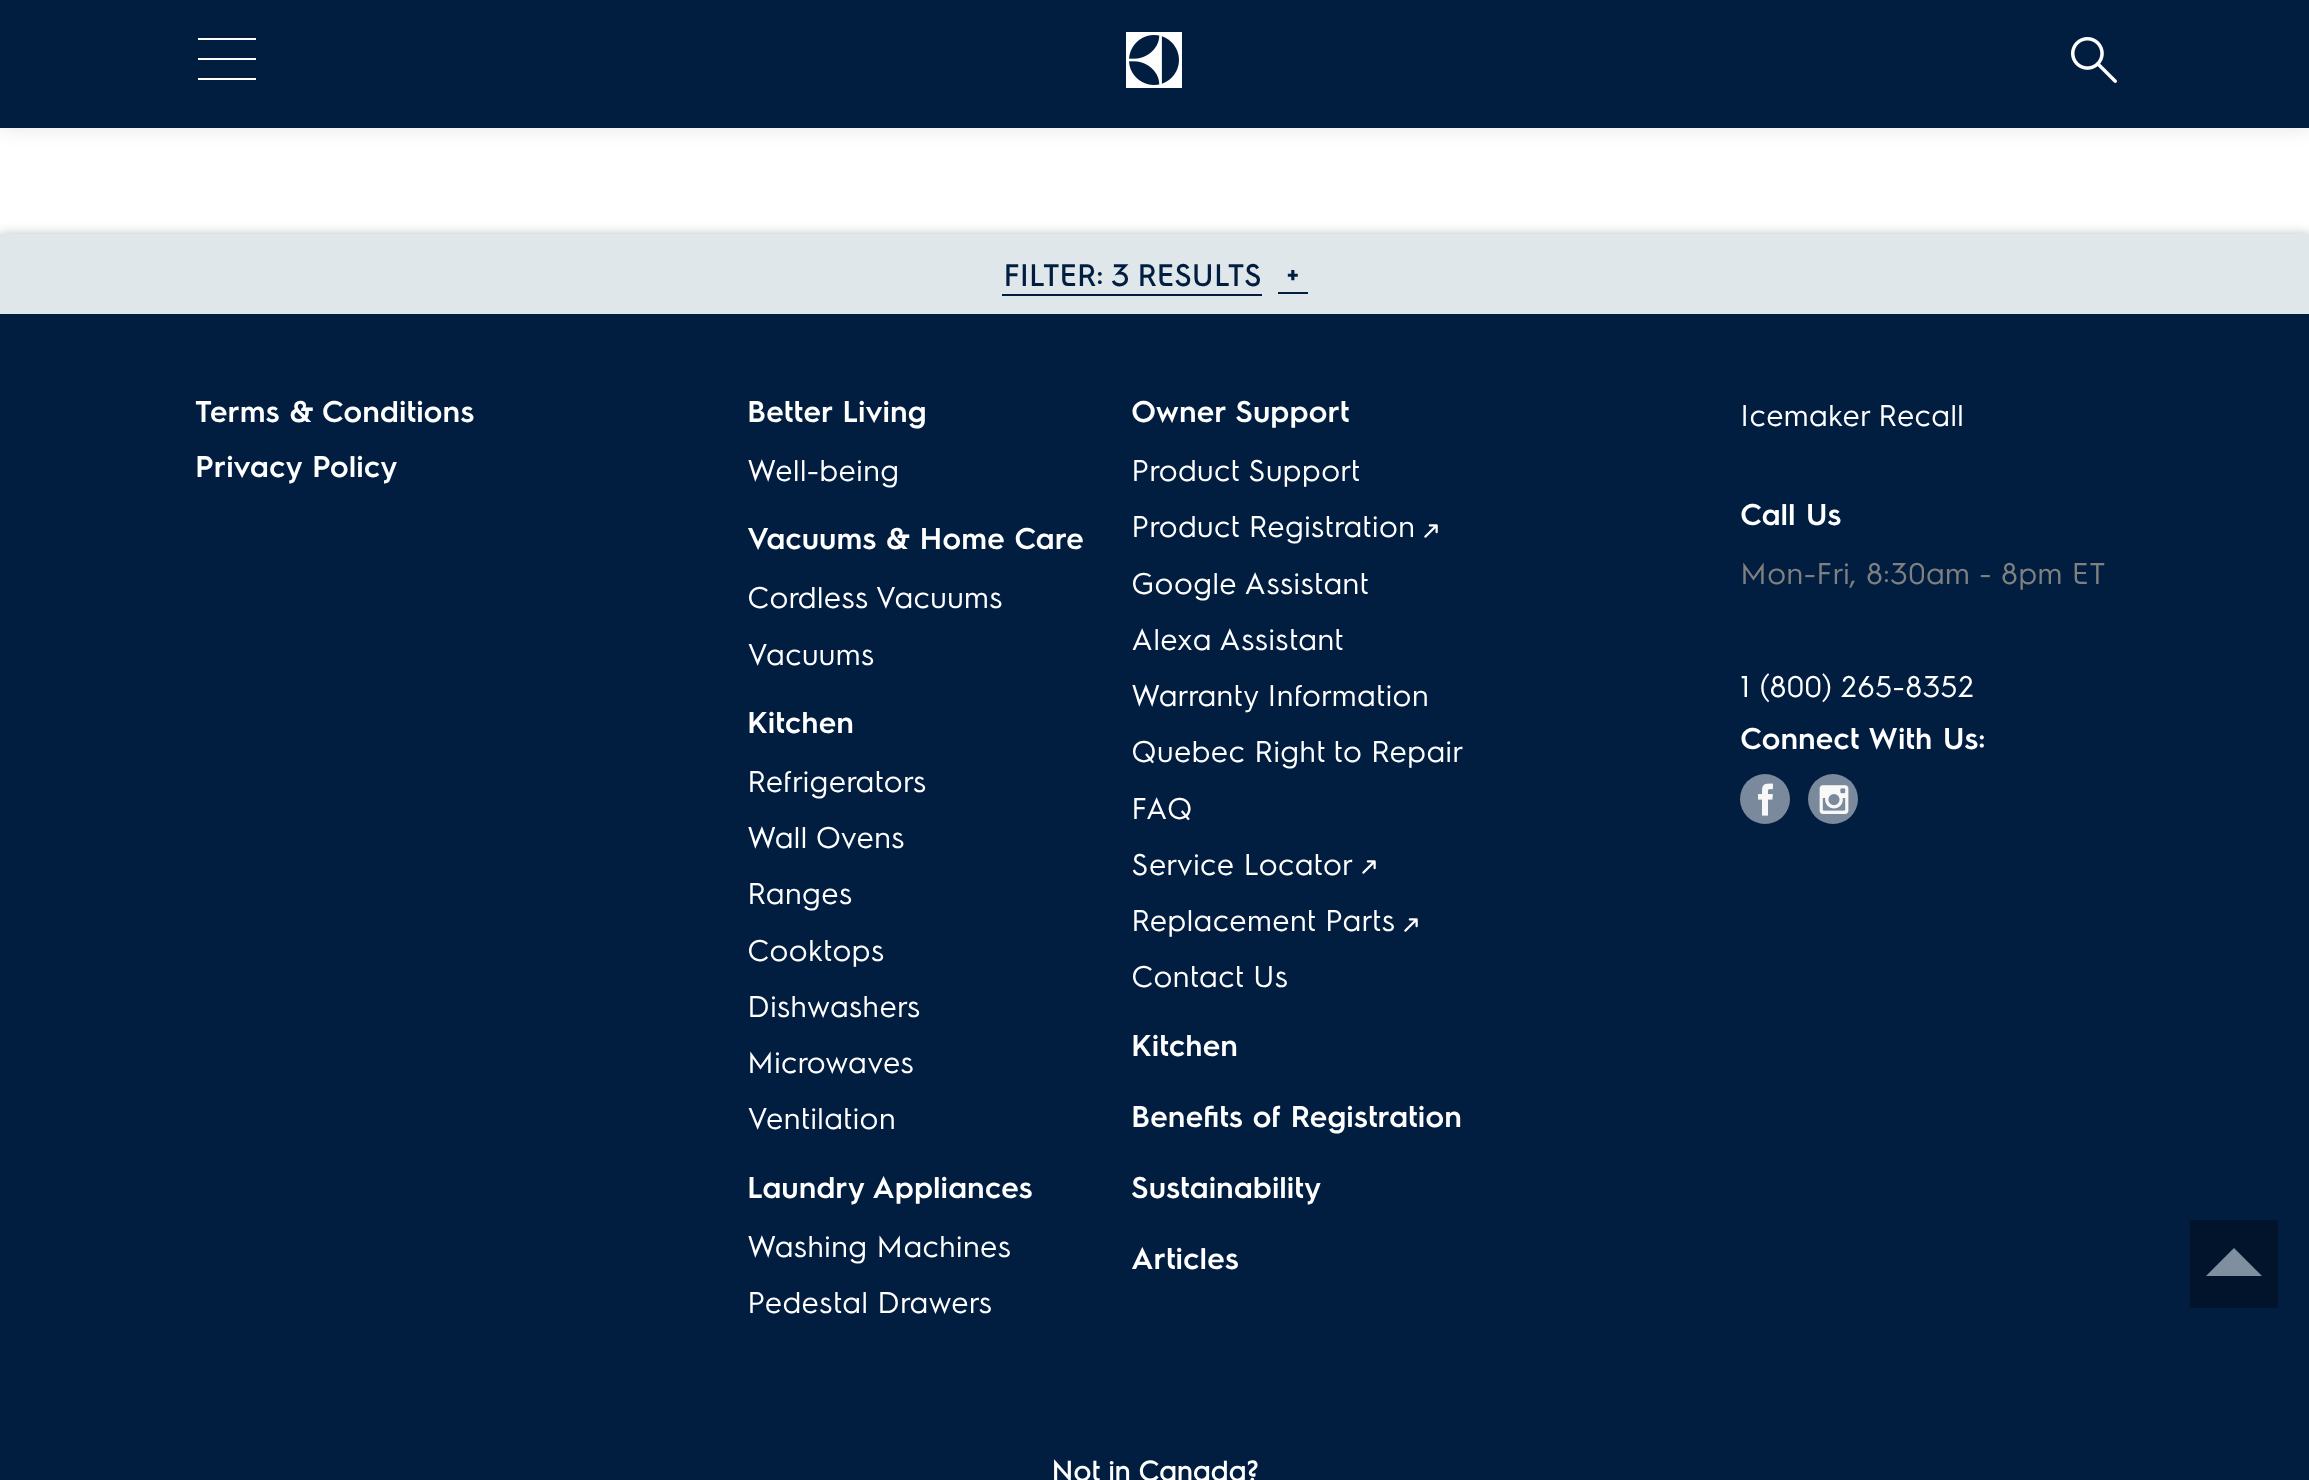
<svg xmlns="http://www.w3.org/2000/svg" width="2309" height="1480">
<rect width="100%" height="100%" fill="#fff"/>
<rect width="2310" height="128" fill="#0000001a" filter="blur(10px)"/>
<rect width="2309" height="128" fill="#011e41"/>
<image x="1126" y="32" width="56" height="56" href="media/1.png"/>
<rect x="198" y="38" width="58" height="2" fill="#fff"/>
<rect x="198" y="58" width="58" height="2" fill="#fff"/>
<rect x="198" y="78" width="58" height="2" fill="#fff"/>
<image x="2071" y="37" width="46" height="46" href="media/2.png"/>
<rect y="234" width="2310" height="80" fill="#00000040" filter="blur(6px)"/>
<rect y="234" width="2309" height="80" fill="#dfe7ea"/>
<rect x="1002" y="294" width="260" height="2" fill="#011e41"/>
<rect x="1278" y="292" width="30" height="2" fill="#011e41"/>
<text x="1003" y="286" style="font-family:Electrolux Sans;font-size:30px;font-weight:bold;fill:#011e41">FILTER:</text>
<text x="1111" y="286" style="font-family:Electrolux Sans;font-size:30px;font-weight:bold;fill:#011e41">3</text>
<text x="1137" y="286" style="font-family:Electrolux Sans;font-size:30px;font-weight:bold;fill:#011e41">RESULTS</text>
<text x="1286" y="286" style="font-family:Electrolux Sans;font-size:30px;font-weight:bold;fill:#011e41">+</text>
<rect y="314" width="2309" height="1166" fill="#011e41"/>
<text x="195" y="422" style="font-family:Electrolux Sans;font-size:30px;font-weight:600;fill:#fff">Terms &amp; Conditions</text>
<text x="195" y="477" style="font-family:Electrolux Sans;font-size:30px;font-weight:600;fill:#fff">Privacy Policy</text>
<text x="747" y="422" style="font-family:Electrolux Sans;font-size:30px;font-weight:600;fill:#fff">Better Living</text>
<text x="747" y="481" style="font-family:Electrolux Sans;font-size:30px;fill:#fff">Well-being</text>
<text x="1131" y="422" style="font-family:Electrolux Sans;font-size:30px;font-weight:600;fill:#fff">Owner Support</text>
<text x="1131" y="481" style="font-family:Electrolux Sans;font-size:30px;fill:#fff">Product Support</text>
<text x="1131" y="537" style="font-family:Electrolux Sans;font-size:30px;fill:#fff">Product Registration</text>
<image x="1424" y="524" width="14" height="14" href="media/3.png"/>
<text x="1131" y="594" style="font-family:Electrolux Sans;font-size:30px;fill:#fff">Google Assistant</text>
<text x="1131" y="650" style="font-family:Electrolux Sans;font-size:30px;fill:#fff">Alexa Assistant</text>
<text x="1131" y="706" style="font-family:Electrolux Sans;font-size:30px;fill:#fff">Warranty Information</text>
<text x="1131" y="762" style="font-family:Electrolux Sans;font-size:30px;fill:#fff">Quebec Right to Repair</text>
<text x="1131" y="819" style="font-family:Electrolux Sans;font-size:30px;fill:#fff">FAQ</text>
<text x="1131" y="875" style="font-family:Electrolux Sans;font-size:30px;fill:#fff">Service Locator</text>
<image x="1362" y="860" width="14" height="14" href="media/3.png"/>
<text x="1131" y="931" style="font-family:Electrolux Sans;font-size:30px;fill:#fff">Replacement Parts</text>
<image x="1404" y="918" width="14" height="14" href="media/3.png"/>
<text x="1131" y="987" style="font-family:Electrolux Sans;font-size:30px;fill:#fff">Contact Us</text>
<text x="747" y="549" style="font-family:Electrolux Sans;font-size:30px;font-weight:600;fill:#fff">Vacuums &amp; Home Care</text>
<text x="747" y="608" style="font-family:Electrolux Sans;font-size:30px;fill:#fff">Cordless Vacuums</text>
<text x="747" y="665" style="font-family:Electrolux Sans;font-size:30px;fill:#fff">Vacuums</text>
<text x="747" y="733" style="font-family:Electrolux Sans;font-size:30px;font-weight:600;fill:#fff">Kitchen</text>
<text x="747" y="792" style="font-family:Electrolux Sans;font-size:30px;fill:#fff">Refrigerators</text>
<text x="747" y="848" style="font-family:Electrolux Sans;font-size:30px;fill:#fff">Wall Ovens</text>
<text x="747" y="904" style="font-family:Electrolux Sans;font-size:30px;fill:#fff">Ranges</text>
<text x="747" y="961" style="font-family:Electrolux Sans;font-size:30px;fill:#fff">Cooktops</text>
<text x="747" y="1017" style="font-family:Electrolux Sans;font-size:30px;fill:#fff">Dishwashers</text>
<text x="747" y="1073" style="font-family:Electrolux Sans;font-size:30px;fill:#fff">Microwaves</text>
<text x="747" y="1129" style="font-family:Electrolux Sans;font-size:30px;fill:#fff">Ventilation</text>
<text x="1131" y="1056" style="font-family:Electrolux Sans;font-size:30px;font-weight:600;fill:#fff">Kitchen</text>
<text x="1131" y="1127" style="font-family:Electrolux Sans;font-size:30px;font-weight:600;fill:#fff">Benefits of Registration</text>
<text x="747" y="1198" style="font-family:Electrolux Sans;font-size:30px;font-weight:600;fill:#fff">Laundry Appliances</text>
<text x="747" y="1257" style="font-family:Electrolux Sans;font-size:30px;fill:#fff">Washing Machines</text>
<text x="747" y="1313" style="font-family:Electrolux Sans;font-size:30px;fill:#fff">Pedestal Drawers</text>
<text x="1131" y="1198" style="font-family:Electrolux Sans;font-size:30px;font-weight:600;fill:#fff">Sustainability</text>
<text x="1131" y="1269" style="font-family:Electrolux Sans;font-size:30px;font-weight:600;fill:#fff">Articles</text>
<text x="1740" y="426" style="font-family:Electrolux Sans;font-size:30px;fill:#fff">Icemaker Recall</text>
<text x="1740" y="525" style="font-family:Electrolux Sans;font-size:30px;font-weight:600;fill:#fff">Call Us</text>
<text x="1740" y="584" style="font-family:Electrolux Sans;font-size:30px;fill:#808080">Mon-Fri, 8:30am - 8pm ET</text>
<text x="1740" y="697" style="font-family:Electrolux Sans;font-size:30px;fill:#fff">1 (800) 265-8352</text>
<text x="1740" y="749" style="font-family:Electrolux Sans;font-size:30px;font-weight:600;fill:#fff">Connect With Us:</text>
<circle cx="1765" cy="799" r="25" fill="#7a8a9c"/>
<image x="1758" y="783" width="15" height="33" href="media/4.png"/>
<circle cx="1833" cy="799" r="25" fill="#7a8a9c"/>
<image x="1819" y="785" width="30" height="29" href="media/5.png"/>
<rect x="2190" y="1220" width="88" height="88" fill="#01142b"/>
<path d="M2262 1276h-56l28-28z" fill="#808fa0"/>
<text x="1051" y="1481" style="font-family:Electrolux Sans;font-size:28px;font-weight:bold;fill:#fff">Not in Canada?</text>
</svg>
